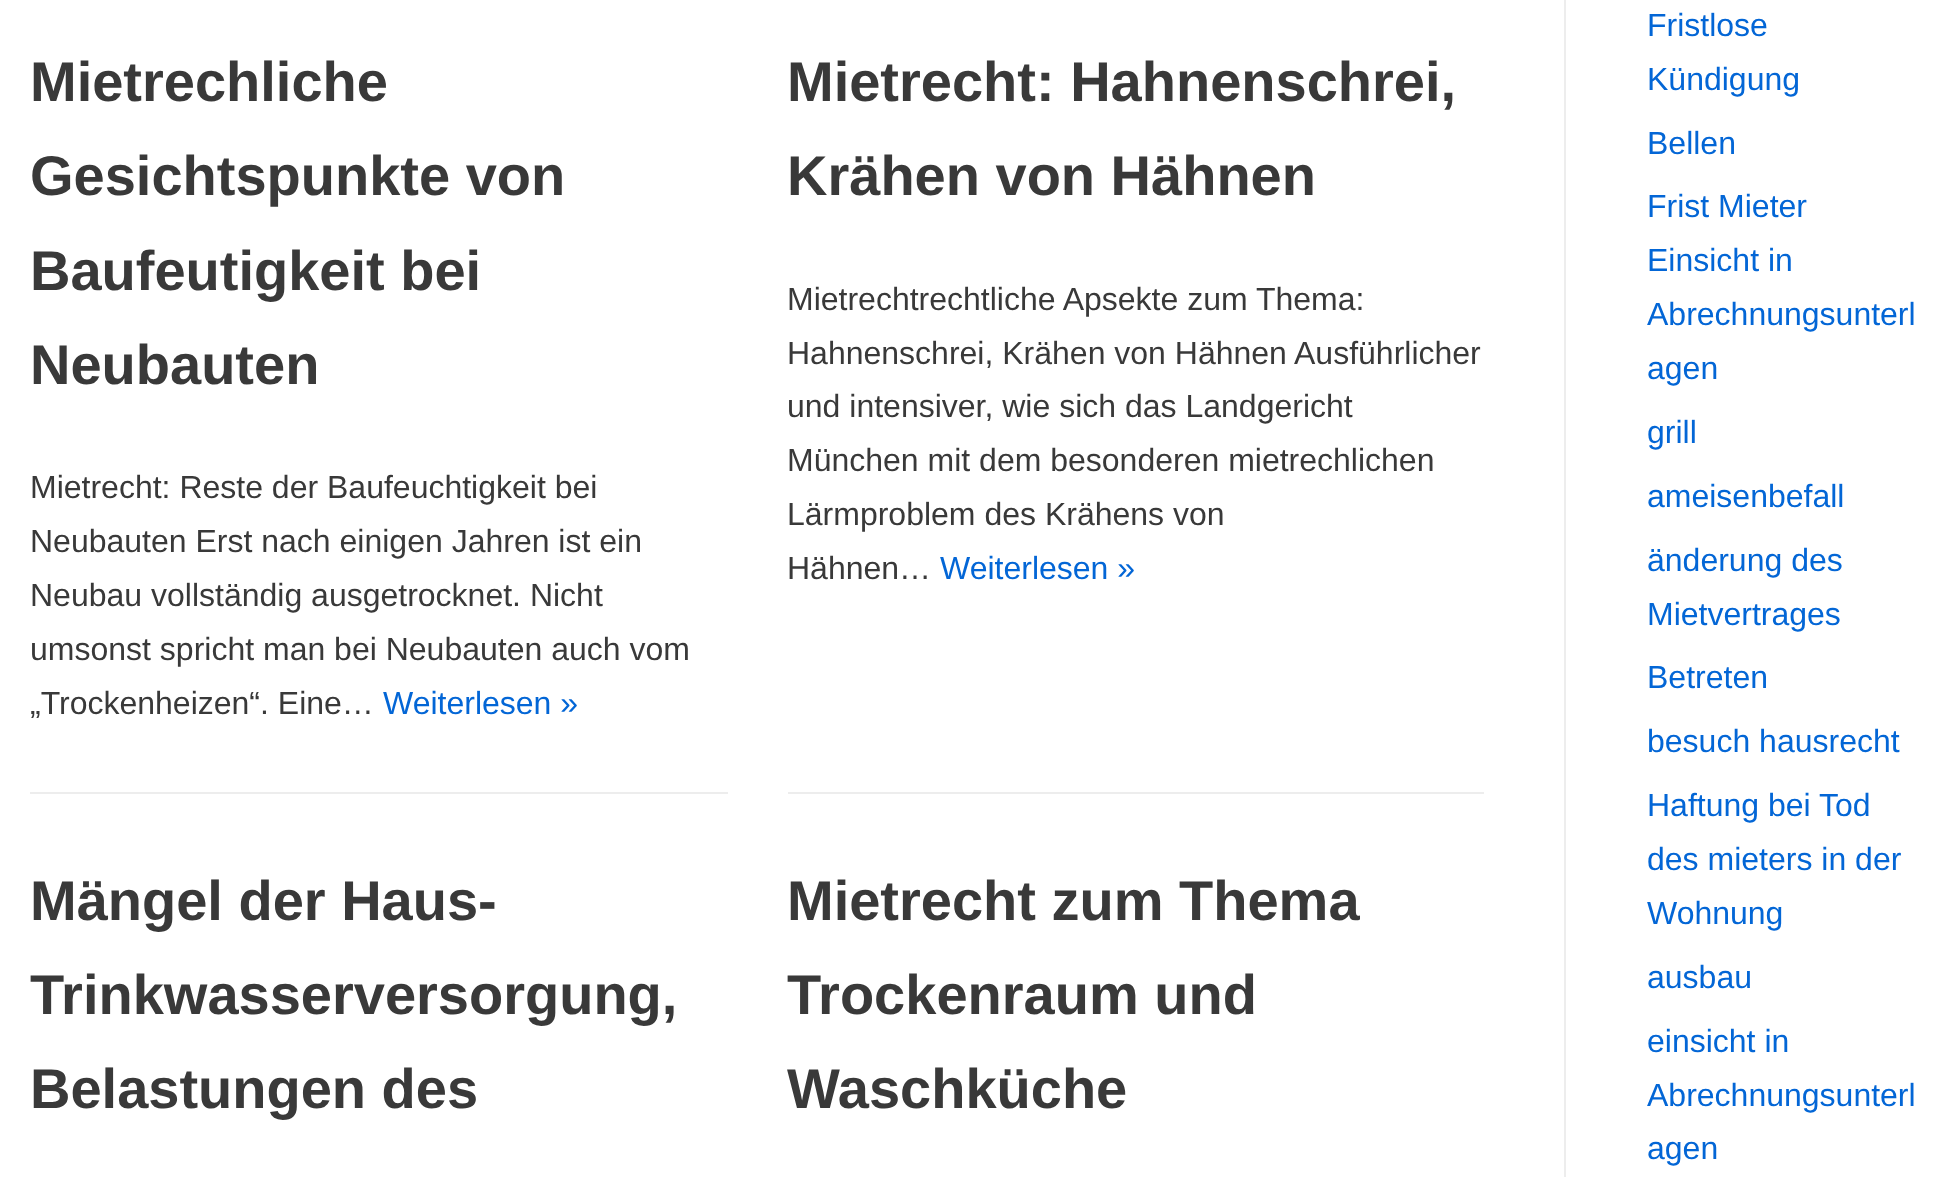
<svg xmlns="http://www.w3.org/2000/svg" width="1956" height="1177">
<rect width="100%" height="100%" fill="#fff"/>
<rect x="30" y="792" width="698" height="2" fill="#ededed"/>
<text x="30" y="101" style="font-family:Liberation Sans;font-size:56px;font-weight:bold;fill:#393939">Mietrechliche</text>
<text x="30" y="195" style="font-family:Liberation Sans;font-size:56px;font-weight:bold;fill:#393939">Gesichtspunkte von</text>
<text x="30" y="290" style="font-family:Liberation Sans;font-size:56px;font-weight:bold;fill:#393939">Baufeutigkeit bei</text>
<text x="30" y="384" style="font-family:Liberation Sans;font-size:56px;font-weight:bold;fill:#393939">Neubauten</text>
<text x="30" y="498" style="font-family:Liberation Sans;font-size:32px;fill:#393939">Mietrecht: Reste der Baufeuchtigkeit bei</text>
<text x="30" y="552" style="font-family:Liberation Sans;font-size:32px;fill:#393939">Neubauten Erst nach einigen Jahren ist ein</text>
<text x="30" y="606" style="font-family:Liberation Sans;font-size:32px;fill:#393939">Neubau vollständig ausgetrocknet. Nicht</text>
<text x="30" y="660" style="font-family:Liberation Sans;font-size:32px;fill:#393939">umsonst spricht man bei Neubauten auch vom</text>
<text x="30" y="714" style="font-family:Liberation Sans;font-size:32px;fill:#393939">„Trockenheizen“. Eine…</text>
<text x="383" y="714" style="font-family:Liberation Sans;font-size:32px;fill:#0366d6">Weiterlesen »</text>
<rect x="788" y="792" width="696" height="2" fill="#ededed"/>
<text x="787" y="101" style="font-family:Liberation Sans;font-size:56px;font-weight:bold;fill:#393939">Mietrecht: Hahnenschrei,</text>
<text x="787" y="195" style="font-family:Liberation Sans;font-size:56px;font-weight:bold;fill:#393939">Krähen von Hähnen</text>
<text x="787" y="310" style="font-family:Liberation Sans;font-size:32px;fill:#393939">Mietrechtrechtliche Apsekte zum Thema:</text>
<text x="787" y="364" style="font-family:Liberation Sans;font-size:32px;fill:#393939">Hahnenschrei, Krähen von Hähnen Ausführlicher</text>
<text x="787" y="417" style="font-family:Liberation Sans;font-size:32px;fill:#393939">und intensiver, wie sich das Landgericht</text>
<text x="787" y="471" style="font-family:Liberation Sans;font-size:32px;fill:#393939">München mit dem besonderen mietrechlichen</text>
<text x="787" y="525" style="font-family:Liberation Sans;font-size:32px;fill:#393939">Lärmproblem des Krähens von</text>
<text x="787" y="579" style="font-family:Liberation Sans;font-size:32px;fill:#393939">Hähnen…</text>
<text x="940" y="579" style="font-family:Liberation Sans;font-size:32px;fill:#0366d6">Weiterlesen »</text>
<text x="30" y="920" style="font-family:Liberation Sans;font-size:56px;font-weight:bold;fill:#393939">Mängel der Haus-</text>
<text x="30" y="1014" style="font-family:Liberation Sans;font-size:56px;font-weight:bold;fill:#393939">Trinkwasserversorgung,</text>
<text x="30" y="1108" style="font-family:Liberation Sans;font-size:56px;font-weight:bold;fill:#393939">Belastungen des</text>
<text x="787" y="920" style="font-family:Liberation Sans;font-size:56px;font-weight:bold;fill:#393939">Mietrecht zum Thema</text>
<text x="787" y="1014" style="font-family:Liberation Sans;font-size:56px;font-weight:bold;fill:#393939">Trockenraum und</text>
<text x="787" y="1108" style="font-family:Liberation Sans;font-size:56px;font-weight:bold;fill:#393939">Waschküche</text>
<rect x="1564" width="2" height="1177" fill="#ededed"/>
<text x="1647" y="36" style="font-family:Liberation Sans;font-size:32px;fill:#0366d6">Fristlose</text>
<text x="1647" y="90" style="font-family:Liberation Sans;font-size:32px;fill:#0366d6">Kündigung</text>
<text x="1647" y="154" style="font-family:Liberation Sans;font-size:32px;fill:#0366d6">Bellen</text>
<text x="1647" y="217" style="font-family:Liberation Sans;font-size:32px;fill:#0366d6">Frist Mieter</text>
<text x="1647" y="271" style="font-family:Liberation Sans;font-size:32px;fill:#0366d6">Einsicht in</text>
<text x="1647" y="325" style="font-family:Liberation Sans;font-size:32px;fill:#0366d6">Abrechnungsunterl</text>
<text x="1647" y="379" style="font-family:Liberation Sans;font-size:32px;fill:#0366d6">agen</text>
<text x="1647" y="443" style="font-family:Liberation Sans;font-size:32px;fill:#0366d6">grill</text>
<text x="1647" y="507" style="font-family:Liberation Sans;font-size:32px;fill:#0366d6">ameisenbefall</text>
<text x="1647" y="571" style="font-family:Liberation Sans;font-size:32px;fill:#0366d6">änderung des</text>
<text x="1647" y="625" style="font-family:Liberation Sans;font-size:32px;fill:#0366d6">Mietvertrages</text>
<text x="1647" y="688" style="font-family:Liberation Sans;font-size:32px;fill:#0366d6">Betreten</text>
<text x="1647" y="752" style="font-family:Liberation Sans;font-size:32px;fill:#0366d6">besuch hausrecht</text>
<text x="1647" y="816" style="font-family:Liberation Sans;font-size:32px;fill:#0366d6">Haftung bei Tod</text>
<text x="1647" y="870" style="font-family:Liberation Sans;font-size:32px;fill:#0366d6">des mieters in der</text>
<text x="1647" y="924" style="font-family:Liberation Sans;font-size:32px;fill:#0366d6">Wohnung</text>
<text x="1647" y="988" style="font-family:Liberation Sans;font-size:32px;fill:#0366d6">ausbau</text>
<text x="1647" y="1052" style="font-family:Liberation Sans;font-size:32px;fill:#0366d6">einsicht in</text>
<text x="1647" y="1106" style="font-family:Liberation Sans;font-size:32px;fill:#0366d6">Abrechnungsunterl</text>
<text x="1647" y="1159" style="font-family:Liberation Sans;font-size:32px;fill:#0366d6">agen</text>
</svg>
